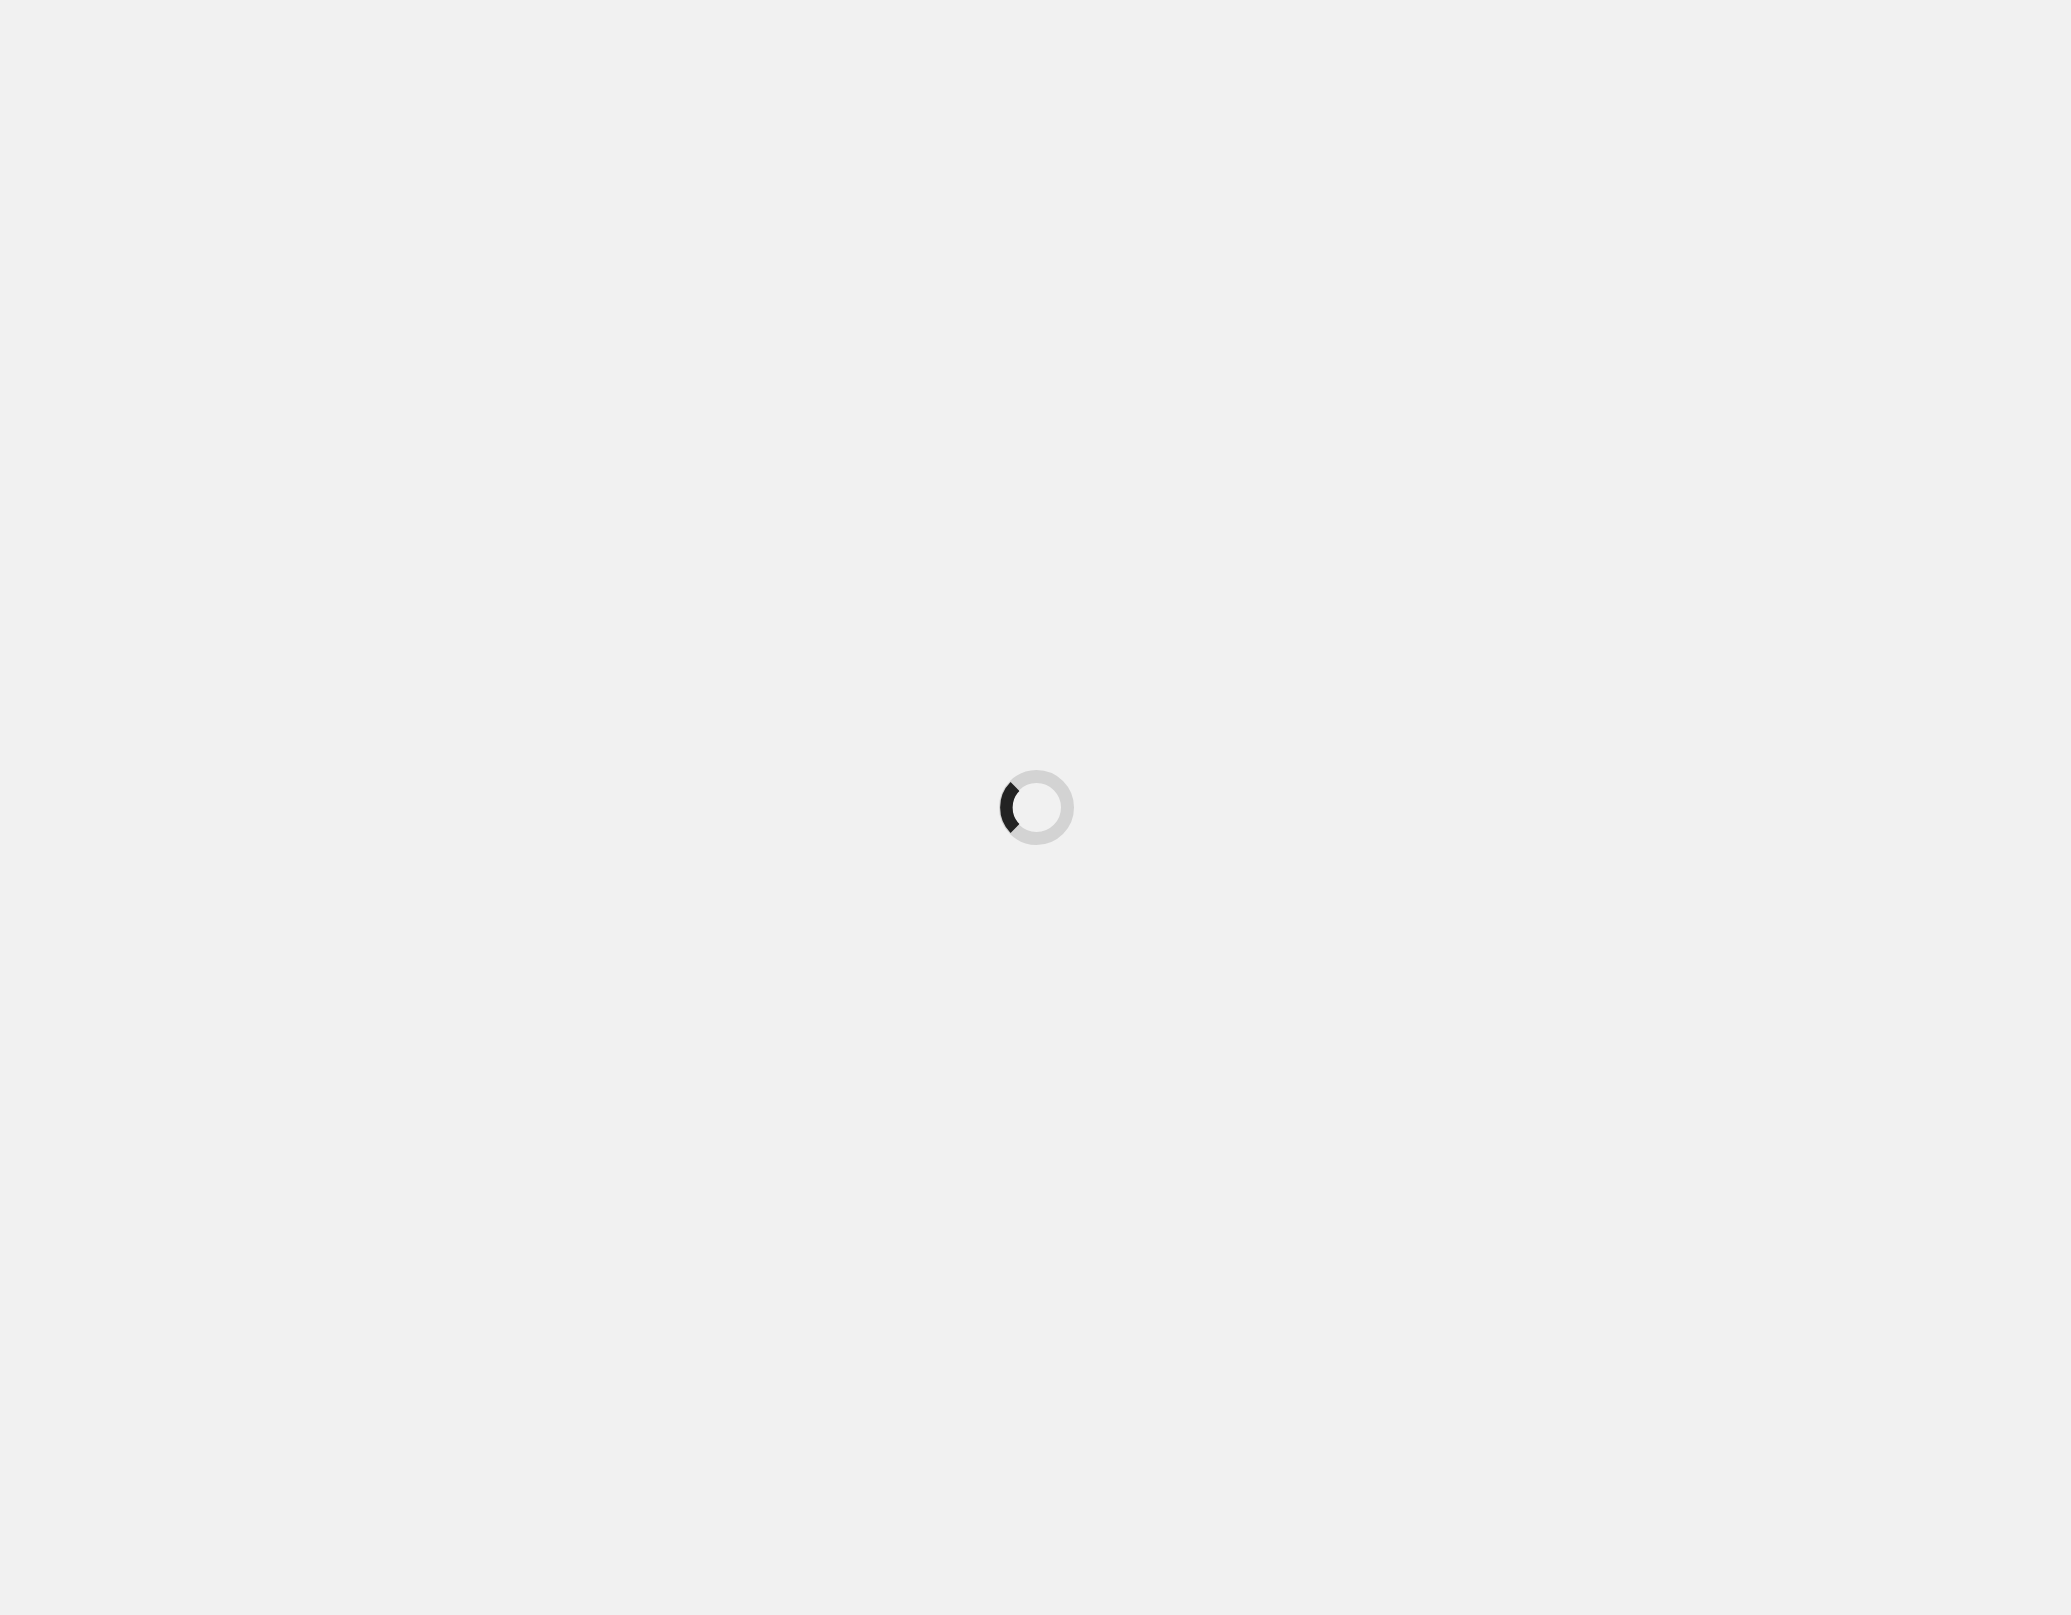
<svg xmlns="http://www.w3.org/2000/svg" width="2071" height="1615">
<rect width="100%" height="100%" fill="#f1f1f1"/>
<circle cx="1036.5" cy="807.5" r="31" fill="none" stroke="#d3d3d3" stroke-width="13"/>
<path d="M1015 828.5c-11.5-11.5-11.5-30.5 0-42" fill="none" stroke="#222" stroke-width="12.5"/>
</svg>
